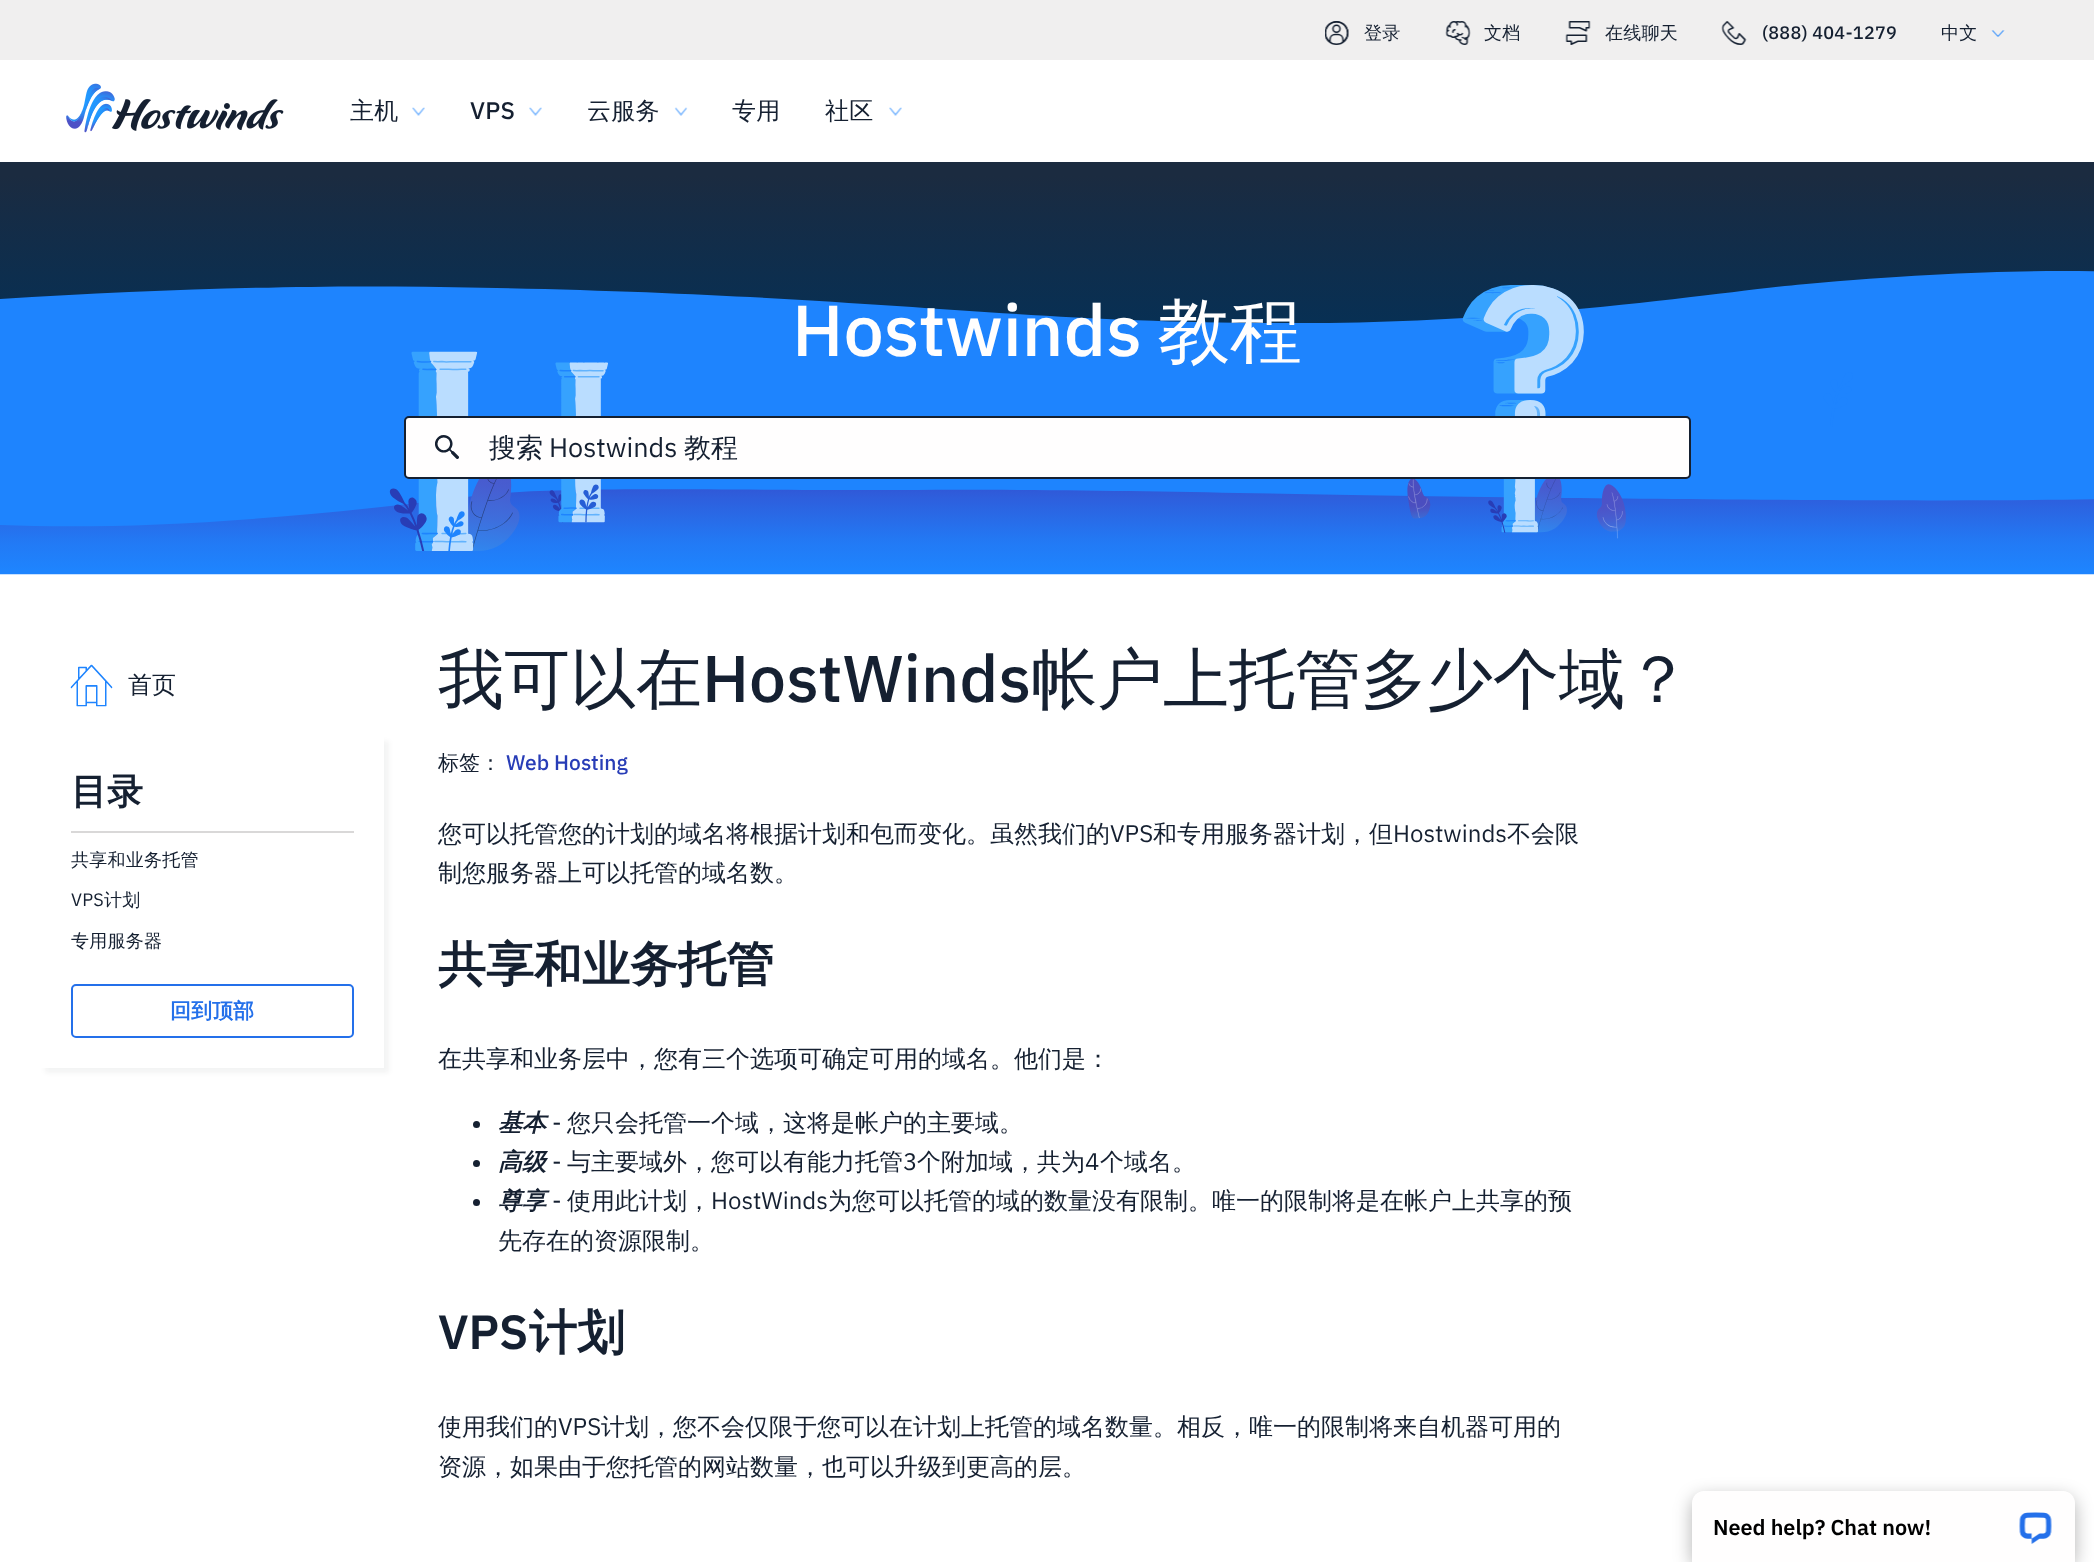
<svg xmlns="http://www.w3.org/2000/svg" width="2094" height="1562">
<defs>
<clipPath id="clip1"><path d="M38 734h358v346h-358zm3 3h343v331h-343z" clip-rule="evenodd"/></clipPath>
</defs>
<rect width="100%" height="100%" fill="#fff"/>
<rect width="2094" height="60" fill="#f0efef"/>
<image x="1325" y="21" width="24" height="24" href="media/1.png"/>
<text x="1364" y="39" style="font-family:WenQuanYi Zen Hei;font-size:18px;font-weight:500;letter-spacing:0.25px;fill:#152031">登录</text>
<image x="1445" y="21" width="26" height="24" href="media/2.png"/>
<text x="1484" y="39" style="font-family:WenQuanYi Zen Hei;font-size:18px;font-weight:500;letter-spacing:0.25px;fill:#152031">文档</text>
<image x="1565" y="21" width="26" height="24" href="media/3.png"/>
<text x="1605" y="39" style="font-family:WenQuanYi Zen Hei;font-size:18px;font-weight:500;letter-spacing:0.25px;fill:#152031">在线聊天</text>
<image x="1721" y="21" width="26" height="24" href="media/4.png"/>
<text x="1762" y="39" style="font-family:IBM Plex Sans;font-size:18px;font-weight:500;letter-spacing:0.25px;fill:#152031">(888) 404-1279</text>
<text x="1941" y="39" style="font-family:WenQuanYi Zen Hei;font-size:18px;font-weight:500;letter-spacing:0.25px;fill:#152031">中文</text>
<image x="1991" y="30" width="14" height="7" href="media/5.png"/>
<image x="66" y="83" width="218" height="50" href="media/6.png"/>
<text x="350" y="119" style="font-family:WenQuanYi Zen Hei;font-size:24px;font-weight:500;letter-spacing:0.25px;fill:#152031">主机</text>
<image x="412" y="107" width="13" height="9" href="media/7.png"/>
<text x="470" y="119" style="font-family:IBM Plex Sans;font-size:24px;font-weight:500;letter-spacing:0.25px;fill:#152031">VPS</text>
<image x="529" y="107" width="13" height="9" href="media/7.png"/>
<text x="587" y="119" style="font-family:WenQuanYi Zen Hei;font-size:24px;font-weight:500;letter-spacing:0.25px;fill:#152031">云服务</text>
<image x="674" y="107" width="14" height="9" href="media/8.png"/>
<text x="732" y="119" style="font-family:WenQuanYi Zen Hei;font-size:24px;font-weight:500;letter-spacing:0.25px;fill:#152031">专用</text>
<text x="825" y="119" style="font-family:WenQuanYi Zen Hei;font-size:24px;font-weight:500;letter-spacing:0.25px;fill:#152031">社区</text>
<image x="889" y="107" width="13" height="9" href="media/7.png"/>
<image x="0" y="162" width="2094" height="413" href="media/9.png"/>
<text x="792" y="356" style="font-family:IBM Plex Sans;font-size:72px;font-weight:500;fill:#fffefe">Hostwinds</text>
<text x="1158" y="356" style="font-family:WenQuanYi Zen Hei;font-size:72px;font-weight:500;fill:#fffefe">教程</text>
<rect x="405" y="417" width="1285" height="61" rx="4" fill="#fffefe" stroke="#152031" stroke-width="2"/>
<image x="435" y="435" width="24" height="24" href="media/10.png"/>
<text x="489" y="457" style="font-family:WenQuanYi Zen Hei;font-size:27px;font-weight:500;fill:#152031">搜索</text>
<text x="549" y="457" style="font-family:IBM Plex Sans;font-size:27px;fill:#152031">Hostwinds</text>
<text x="684" y="457" style="font-family:WenQuanYi Zen Hei;font-size:27px;font-weight:500;fill:#152031">教程</text>
<image x="70" y="664" width="43" height="43" href="media/11.png"/>
<text x="128" y="693" style="font-family:WenQuanYi Zen Hei;font-size:24px;font-weight:500;fill:#152031">首页</text>
<g clip-path="url(#clip1)">
<rect x="45" y="741" width="344" height="332" fill="#1520310d" filter="blur(2px)"/>
</g>
<text x="71" y="804" style="font-family:WenQuanYi Zen Hei;font-size:36px;font-weight:bold;fill:#152031">目录</text>
<rect x="71" y="831" width="283" height="2" fill="#d9d8d8"/>
<text x="71" y="866" style="font-family:WenQuanYi Zen Hei;font-size:18px;font-weight:500;letter-spacing:0.25px;fill:#152031">共享和业务托管</text>
<text x="71" y="906" style="font-family:IBM Plex Sans;font-size:18px;letter-spacing:0.25px;fill:#152031">VPS</text>
<text x="104" y="906" style="font-family:WenQuanYi Zen Hei;font-size:18px;font-weight:500;letter-spacing:0.25px;fill:#152031">计划</text>
<text x="71" y="947" style="font-family:WenQuanYi Zen Hei;font-size:18px;font-weight:500;letter-spacing:0.25px;fill:#152031">专用服务器</text>
<rect x="72" y="985" width="281" height="52" rx="4" fill="none" stroke="#2470ea" stroke-width="2"/>
<text x="170" y="1018" style="font-family:WenQuanYi Zen Hei;font-size:21px;font-weight:bold;fill:#2470ea">回到顶部</text>
<text x="438" y="702" style="font-family:WenQuanYi Zen Hei;font-size:66px;font-weight:500;fill:#152031">我可以在</text>
<text x="702" y="702" style="font-family:IBM Plex Sans;font-size:66px;font-weight:500;fill:#152031">HostWinds</text>
<text x="1031" y="702" style="font-family:WenQuanYi Zen Hei;font-size:66px;font-weight:500;fill:#152031">帐户上托管多少个域？</text>
<text x="438" y="770" style="font-family:WenQuanYi Zen Hei;font-size:21px;font-weight:500;fill:#152031">标签：</text>
<text x="506" y="770" style="font-family:IBM Plex Sans;font-size:21px;font-weight:500;fill:#283db7">Web Hosting</text>
<text x="438" y="842" style="font-family:WenQuanYi Zen Hei;font-size:24px;font-weight:500;fill:#152031">您可以托管您的计划的域名将根据计划和包而变化。虽然我们的</text>
<text x="1110" y="842" style="font-family:IBM Plex Sans;font-size:24px;fill:#152031">VPS</text>
<text x="1153" y="842" style="font-family:WenQuanYi Zen Hei;font-size:24px;font-weight:500;fill:#152031">和专用服务器计划，但</text>
<text x="1393" y="842" style="font-family:IBM Plex Sans;font-size:24px;fill:#152031">Hostwinds</text>
<text x="1507" y="842" style="font-family:WenQuanYi Zen Hei;font-size:24px;font-weight:500;fill:#152031">不会限</text>
<text x="438" y="881" style="font-family:WenQuanYi Zen Hei;font-size:24px;font-weight:500;fill:#152031">制您服务器上可以托管的域名数。</text>
<text x="438" y="981" style="font-family:WenQuanYi Zen Hei;font-size:48px;font-weight:bold;fill:#152031">共享和业务托管</text>
<text x="438" y="1067" style="font-family:WenQuanYi Zen Hei;font-size:24px;font-weight:500;fill:#152031">在共享和业务层中，您有三个选项可确定可用的域名。他们是：</text>
<circle cx="476.5" cy="1124.5" r="3.5" fill="#152031"/>
<text x="498" y="1131" style="font-family:WenQuanYi Zen Hei;font-size:24px;font-weight:bold;font-style:italic;fill:#152031">基本</text>
<text x="552" y="1131" style="font-family:IBM Plex Sans;font-size:24px;fill:#152031">-</text>
<text x="567" y="1131" style="font-family:WenQuanYi Zen Hei;font-size:24px;font-weight:500;fill:#152031">您只会托管一个域，这将是帐户的主要域。</text>
<circle cx="476.5" cy="1163.5" r="3.5" fill="#152031"/>
<text x="498" y="1170" style="font-family:WenQuanYi Zen Hei;font-size:24px;font-weight:bold;font-style:italic;fill:#152031">高级</text>
<text x="552" y="1170" style="font-family:IBM Plex Sans;font-size:24px;fill:#152031">-</text>
<text x="567" y="1170" style="font-family:WenQuanYi Zen Hei;font-size:24px;font-weight:500;fill:#152031">与主要域外，您可以有能力托管</text>
<text x="903" y="1170" style="font-family:IBM Plex Sans;font-size:24px;fill:#152031">3</text>
<text x="917" y="1170" style="font-family:WenQuanYi Zen Hei;font-size:24px;font-weight:500;fill:#152031">个附加域，共为</text>
<text x="1085" y="1170" style="font-family:IBM Plex Sans;font-size:24px;fill:#152031">4</text>
<text x="1100" y="1170" style="font-family:WenQuanYi Zen Hei;font-size:24px;font-weight:500;fill:#152031">个域名。</text>
<circle cx="476.5" cy="1202.5" r="3.5" fill="#152031"/>
<text x="498" y="1209" style="font-family:WenQuanYi Zen Hei;font-size:24px;font-weight:bold;font-style:italic;fill:#152031">尊享</text>
<text x="552" y="1209" style="font-family:IBM Plex Sans;font-size:24px;fill:#152031">-</text>
<text x="567" y="1209" style="font-family:WenQuanYi Zen Hei;font-size:24px;font-weight:500;fill:#152031">使用此计划，</text>
<text x="711" y="1209" style="font-family:IBM Plex Sans;font-size:24px;fill:#152031">HostWinds</text>
<text x="828" y="1209" style="font-family:WenQuanYi Zen Hei;font-size:24px;font-weight:500;fill:#152031">为您可以托管的域的数量没有限制。唯一的限制将是在帐户上共享的预</text>
<text x="498" y="1249" style="font-family:WenQuanYi Zen Hei;font-size:24px;font-weight:500;fill:#152031">先存在的资源限制。</text>
<text x="438" y="1349" style="font-family:IBM Plex Sans;font-size:48px;font-weight:600;fill:#152031">VPS</text>
<text x="529" y="1349" style="font-family:WenQuanYi Zen Hei;font-size:48px;font-weight:bold;fill:#152031">计划</text>
<text x="438" y="1435" style="font-family:WenQuanYi Zen Hei;font-size:24px;font-weight:500;fill:#152031">使用我们的</text>
<text x="558" y="1435" style="font-family:IBM Plex Sans;font-size:24px;fill:#152031">VPS</text>
<text x="601" y="1435" style="font-family:WenQuanYi Zen Hei;font-size:24px;font-weight:500;fill:#152031">计划，您不会仅限于您可以在计划上托管的域名数量。相反，唯一的限制将来自机器可用的</text>
<text x="438" y="1475" style="font-family:WenQuanYi Zen Hei;font-size:24px;font-weight:500;fill:#152031">资源，如果由于您托管的网站数量，也可以升级到更高的层。</text>
<rect x="1692" y="1497" width="383" height="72" rx="12" fill="#0000004d" filter="blur(9px)"/>
<path d="M1704 1491h359c6.5 0 12 5.5 12 12v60h-383v-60c0-6.5 5.5-12 12-12z" fill="#fffefe"/>
<text x="1713" y="1535" style="font-family:IBM Plex Sans;font-size:21.6px;font-weight:600;fill:#000">Need help? Chat now!</text>
<image x="2019" y="1512" width="33" height="32" href="media/12.png"/>
</svg>
